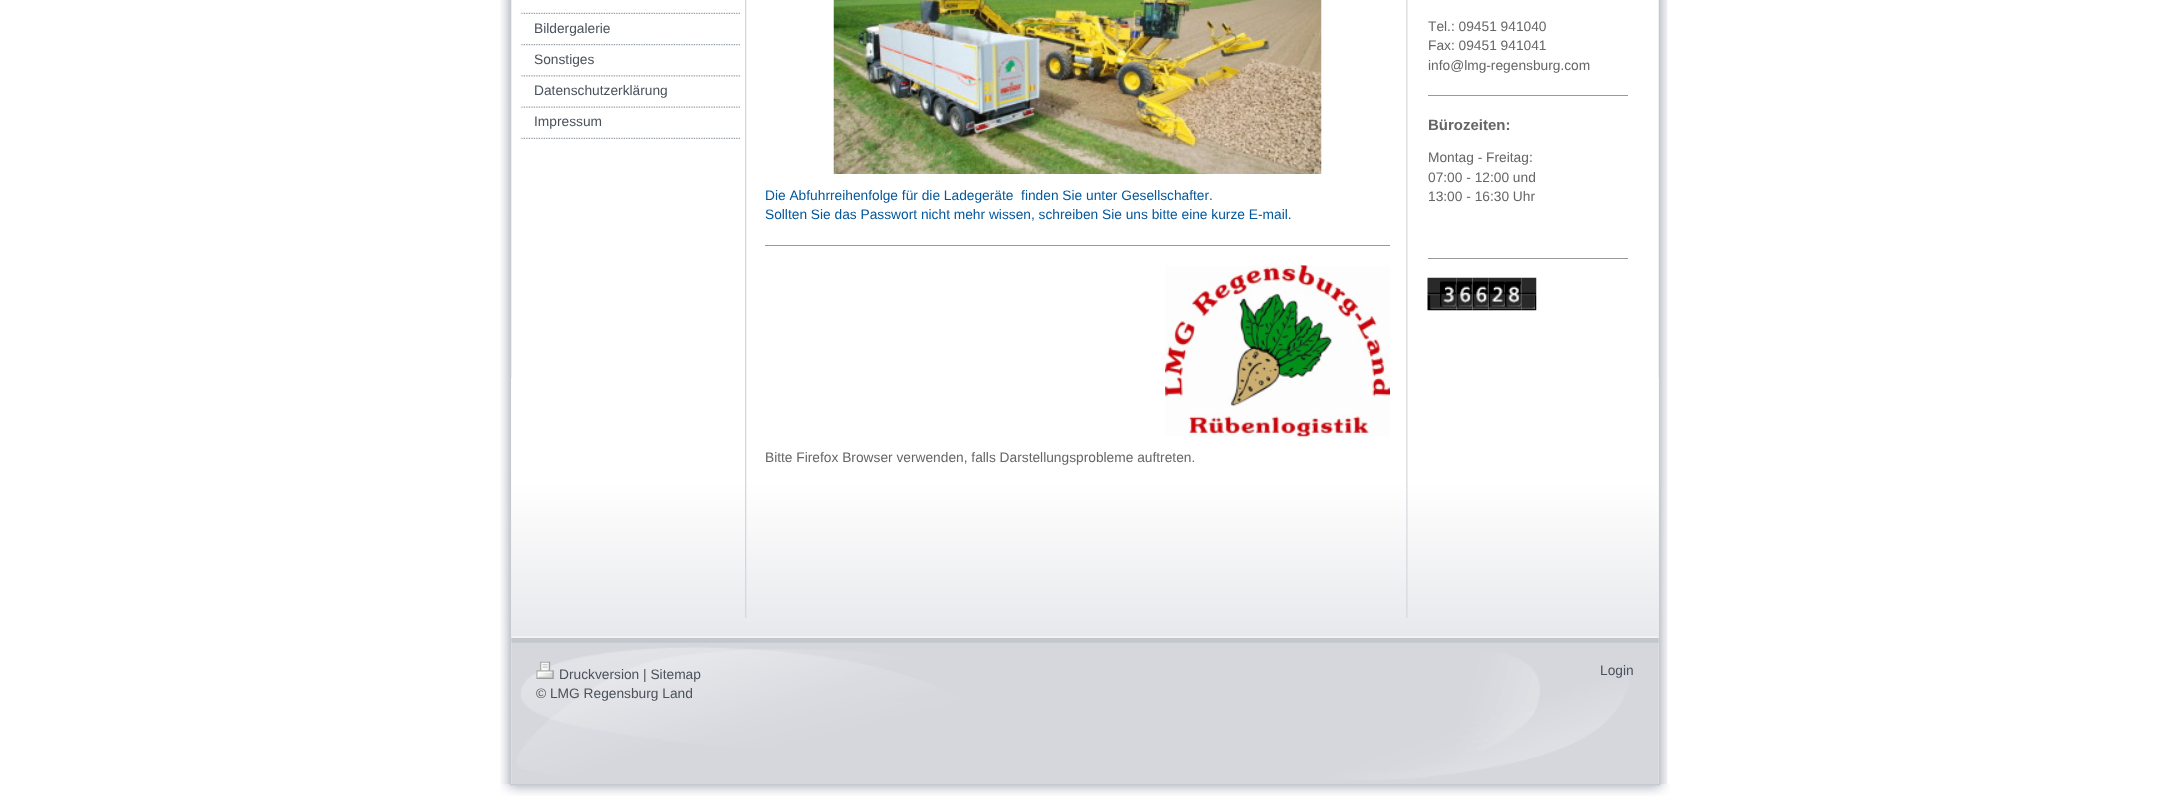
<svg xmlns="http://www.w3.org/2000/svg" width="2170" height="796">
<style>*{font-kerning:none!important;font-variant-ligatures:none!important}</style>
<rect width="100%" height="100%" fill="#fff"/>
<image x="500" y="0" width="1168" height="784" href="media/1.png"/>
<image x="511" y="378" width="1148" height="259" href="media/2.png"/>
<image x="745" y="0" width="663" height="618" href="media/3.png"/>
<image x="521" y="12" width="219" height="2" href="media/4.png"/>
<image x="521" y="44" width="219" height="2" href="media/5.png"/>
<text x="534" y="33" style="font-family:Liberation Sans;font-size:13.75px;fill:#4b525c">Bildergalerie</text>
<image x="521" y="75" width="219" height="2" href="media/6.png"/>
<text x="534" y="64" style="font-family:Liberation Sans;font-size:13.75px;fill:#4b525c">Sonstiges</text>
<image x="521" y="106" width="219" height="2" href="media/7.png"/>
<text x="534" y="95" style="font-family:Liberation Sans;font-size:13.75px;fill:#4b525c">Datenschutzerklärung</text>
<image x="521" y="137" width="219" height="2" href="media/8.png"/>
<text x="534" y="126" style="font-family:Liberation Sans;font-size:13.75px;fill:#4b525c">Impressum</text>
<text x="1428" y="31" style="font-family:Liberation Sans;font-size:13.75px;fill:#666">Tel.: 09451 941040</text>
<text x="1428" y="50" style="font-family:Liberation Sans;font-size:13.75px;fill:#666">Fax: 09451 941041</text>
<text x="1428" y="70" style="font-family:Liberation Sans;font-size:13.75px;fill:#666">info@lmg-regensburg.com</text>
<rect x="1428" y="95" width="200" height="1" fill="#999"/>
<text x="1428" y="130" style="font-family:Liberation Sans;font-size:15px;font-weight:bold;fill:#666">Bürozeiten:</text>
<text x="1428" y="162" style="font-family:Liberation Sans;font-size:13.75px;fill:#666">Montag - Freitag:</text>
<text x="1428" y="182" style="font-family:Liberation Sans;font-size:13.75px;fill:#666">07:00 - 12:00 und</text>
<text x="1428" y="201" style="font-family:Liberation Sans;font-size:13.75px;fill:#666">13:00 - 16:30 Uhr</text>
<rect x="1428" y="258" width="200" height="1" fill="#999"/>
<image x="1427" y="277" width="13" height="34" href="media/9.png"/>
<image x="1440" y="277" width="17" height="34" href="media/10.png"/>
<image x="1456" y="277" width="17" height="34" href="media/11.png"/>
<image x="1472" y="277" width="17" height="34" href="media/12.png"/>
<image x="1488" y="277" width="17" height="34" href="media/13.png"/>
<image x="1505" y="277" width="17" height="34" href="media/14.png"/>
<image x="1521" y="277" width="16" height="34" href="media/15.png"/>
<image x="833" y="0" width="489" height="174" href="media/16.png"/>
<text x="765" y="200" style="font-family:Liberation Sans;font-size:13.75px;fill:#03579b" xml:space="preserve">Die Abfuhrreihenfolge für die Ladegeräte  finden Sie unter Gesellschafter.</text>
<text x="765" y="219" style="font-family:Liberation Sans;font-size:13.75px;fill:#03579b">Sollten Sie das Passwort nicht mehr wissen, schreiben Sie uns bitte eine kurze E-mail.</text>
<rect x="765" y="245" width="625" height="1" fill="#999"/>
<image x="1165" y="265" width="225" height="172" href="media/17.png"/>
<text x="765" y="462" style="font-family:Liberation Sans;font-size:13.75px;fill:#666">Bitte Firefox Browser verwenden, falls Darstellungsprobleme auftreten.</text>
<image x="511" y="637" width="1148" height="147" href="media/18.png"/>
<image x="536" y="661" width="18" height="18" href="media/19.png"/>
<text x="559" y="679" style="font-family:Liberation Sans;font-size:13.75px;fill:#4b525c">Druckversion | Sitemap</text>
<text x="536" y="698" style="font-family:Liberation Sans;font-size:13.75px;fill:#4b525c">© LMG Regensburg Land</text>
<text x="1600" y="675" style="font-family:Liberation Sans;font-size:13.75px;fill:#4b525c">Login</text>
<image x="500" y="784" width="1170" height="12" href="media/20.png"/>
</svg>
